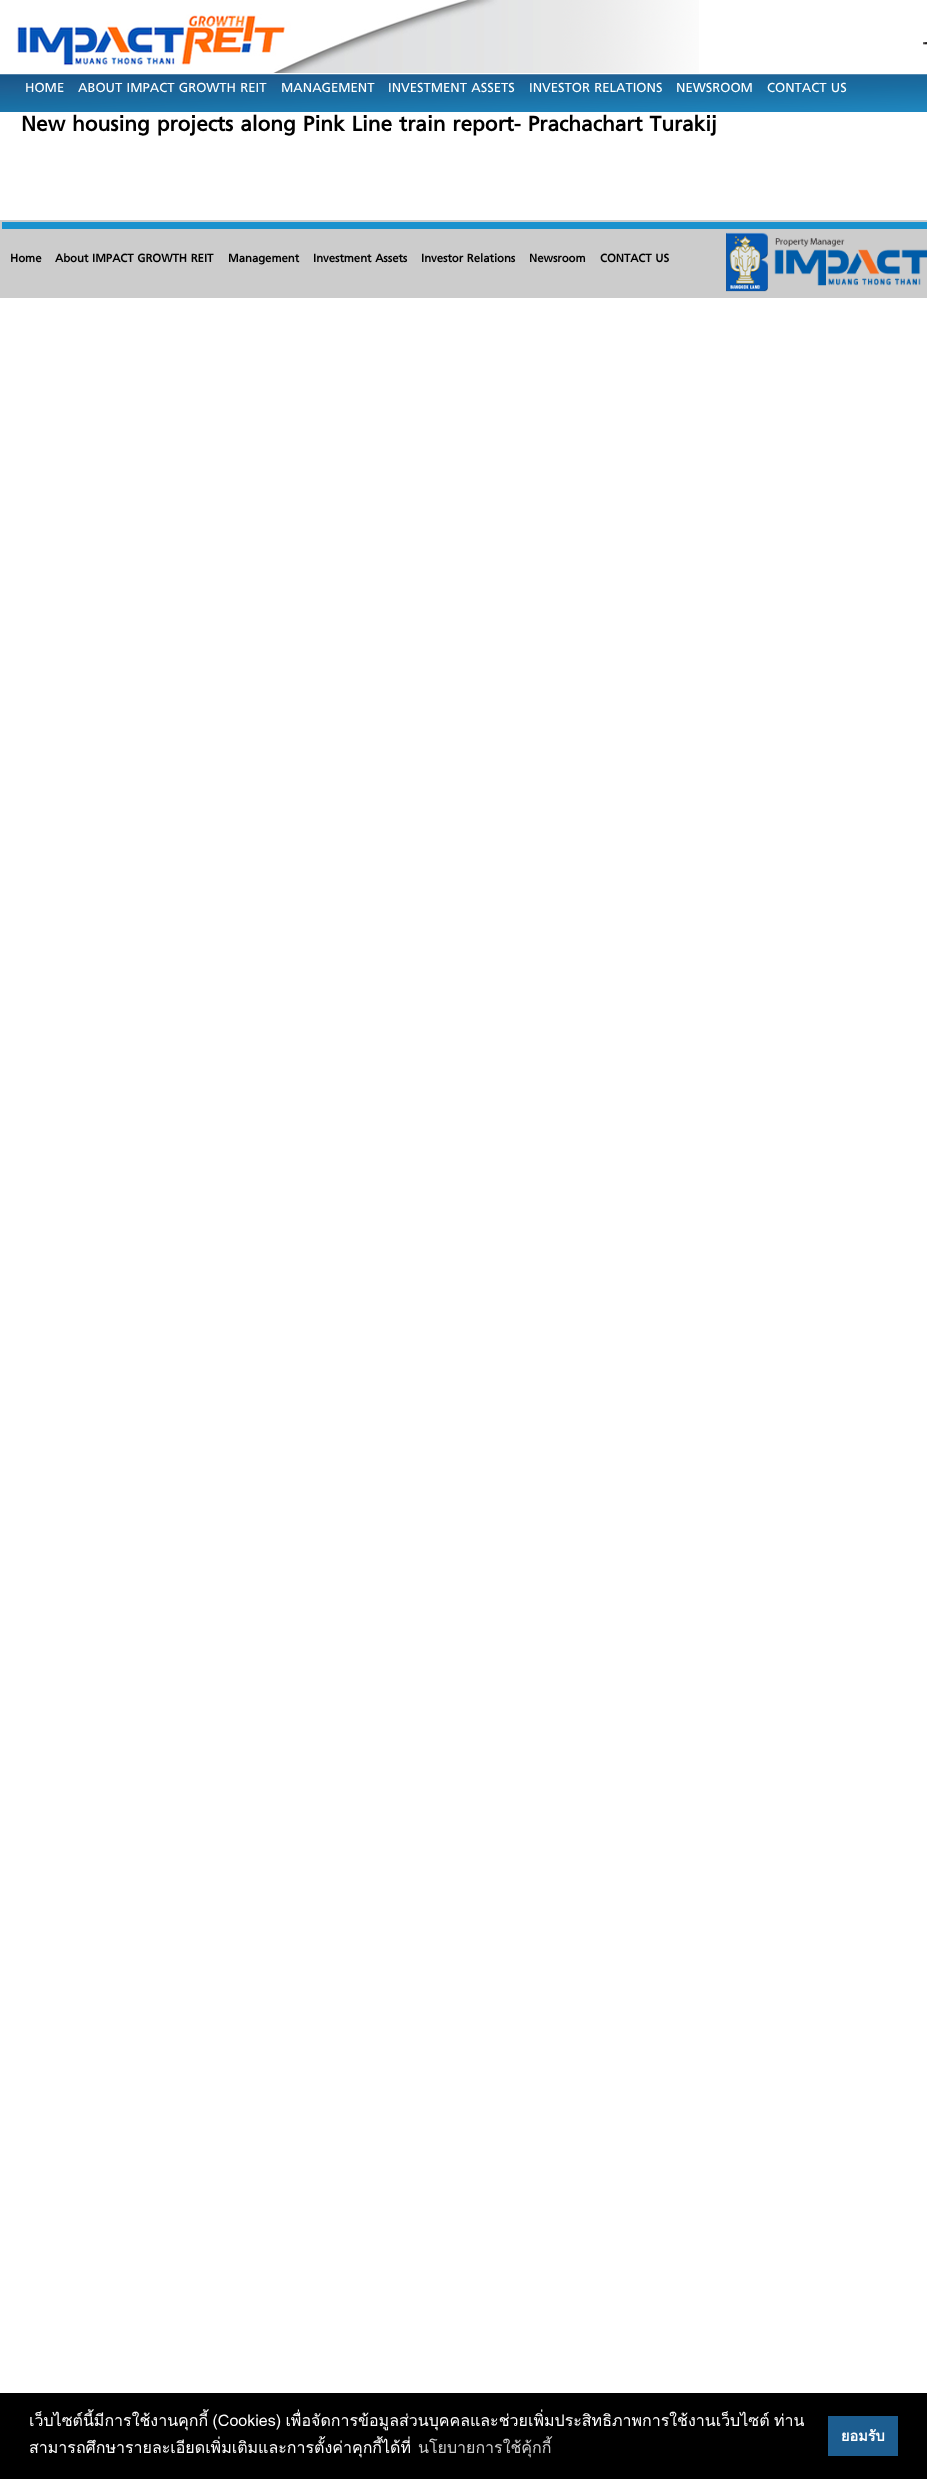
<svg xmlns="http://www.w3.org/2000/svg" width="927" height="2479">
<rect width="100%" height="100%" fill="#fff"/>
<image x="0" y="74" width="927" height="38" href="media/1.png"/>
<image x="17" y="0" width="682" height="73" href="media/2.png"/>
<image x="923" y="42" width="4" height="3" href="media/3.png"/>
<text x="25" y="92" style="font-family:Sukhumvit;font-size:15px;fill:#fff">HOME</text>
<text x="78" y="92" style="font-family:Sukhumvit;font-size:15px;fill:#fff">ABOUT IMPACT GROWTH REIT</text>
<text x="281" y="92" style="font-family:Sukhumvit;font-size:15px;fill:#fff">MANAGEMENT</text>
<text x="388" y="92" style="font-family:Sukhumvit;font-size:15px;fill:#fff">INVESTMENT ASSETS</text>
<text x="529" y="92" style="font-family:Sukhumvit;font-size:15px;fill:#fff">INVESTOR RELATIONS</text>
<text x="676" y="92" style="font-family:Sukhumvit;font-size:15px;fill:#fff">NEWSROOM</text>
<text x="767" y="92" style="font-family:Sukhumvit;font-size:15px;fill:#fff">CONTACT US</text>
<text x="21" y="131" style="font-family:Sukhumvit;font-size:24px;font-weight:bold;fill:#000">New housing projects along Pink Line train report- Prachachart Turakij</text>
<rect y="220" width="927" height="78" fill="#ccc"/>
<rect x="2" y="222" width="925" height="7" fill="#1a92ce"/>
<text x="10" y="262" style="font-family:Sukhumvit;font-size:13px;font-weight:bold;fill:#000">Home</text>
<text x="55" y="262" style="font-family:Sukhumvit;font-size:13px;font-weight:bold;fill:#000">About IMPACT GROWTH REIT</text>
<text x="228" y="262" style="font-family:Sukhumvit;font-size:13px;font-weight:bold;fill:#000">Management</text>
<text x="313" y="262" style="font-family:Sukhumvit;font-size:13px;font-weight:bold;fill:#000">Investment Assets</text>
<text x="421" y="262" style="font-family:Sukhumvit;font-size:13px;font-weight:bold;fill:#000">Investor Relations</text>
<text x="529" y="262" style="font-family:Sukhumvit;font-size:13px;font-weight:bold;fill:#000">Newsroom</text>
<text x="600" y="262" style="font-family:Sukhumvit;font-size:13px;font-weight:bold;fill:#000">CONTACT US</text>
<image x="726" y="232" width="42" height="60" href="media/4.png"/>
<image x="774" y="238" width="153" height="48" href="media/5.png"/>
<rect y="2393" width="927" height="86" fill="#000"/>
<text x="29" y="2426" word-spacing="-1" style="font-family:Loma;font-size:16px;fill:#fff">เว็บไซต์นี้มีการใช้งานคุกกี้ (Cookies) เพื่อจัดการข้อมูลส่วนบุคคลและช่วยเพิ่มประสิทธิภาพการใช้งานเว็บไซต์ ท่าน</text>
<text x="29" y="2453" style="font-family:Loma;font-size:16px;fill:#fff">สามารถศึกษารายละเอียดเพิ่มเติมและการตั้งค่าคุกกี้ได้ที่</text>
<text x="418" y="2453" style="font-family:Loma;font-size:16px;fill:#ccc">นโยบายการใช้คุ้กกี้</text>
<rect x="828" y="2416" width="70" height="40" fill="#1c5d90"/>
<text x="841" y="2441" style="font-family:Loma;font-size:14.5px;font-weight:bold;fill:#fff">ยอมรับ</text>
</svg>
